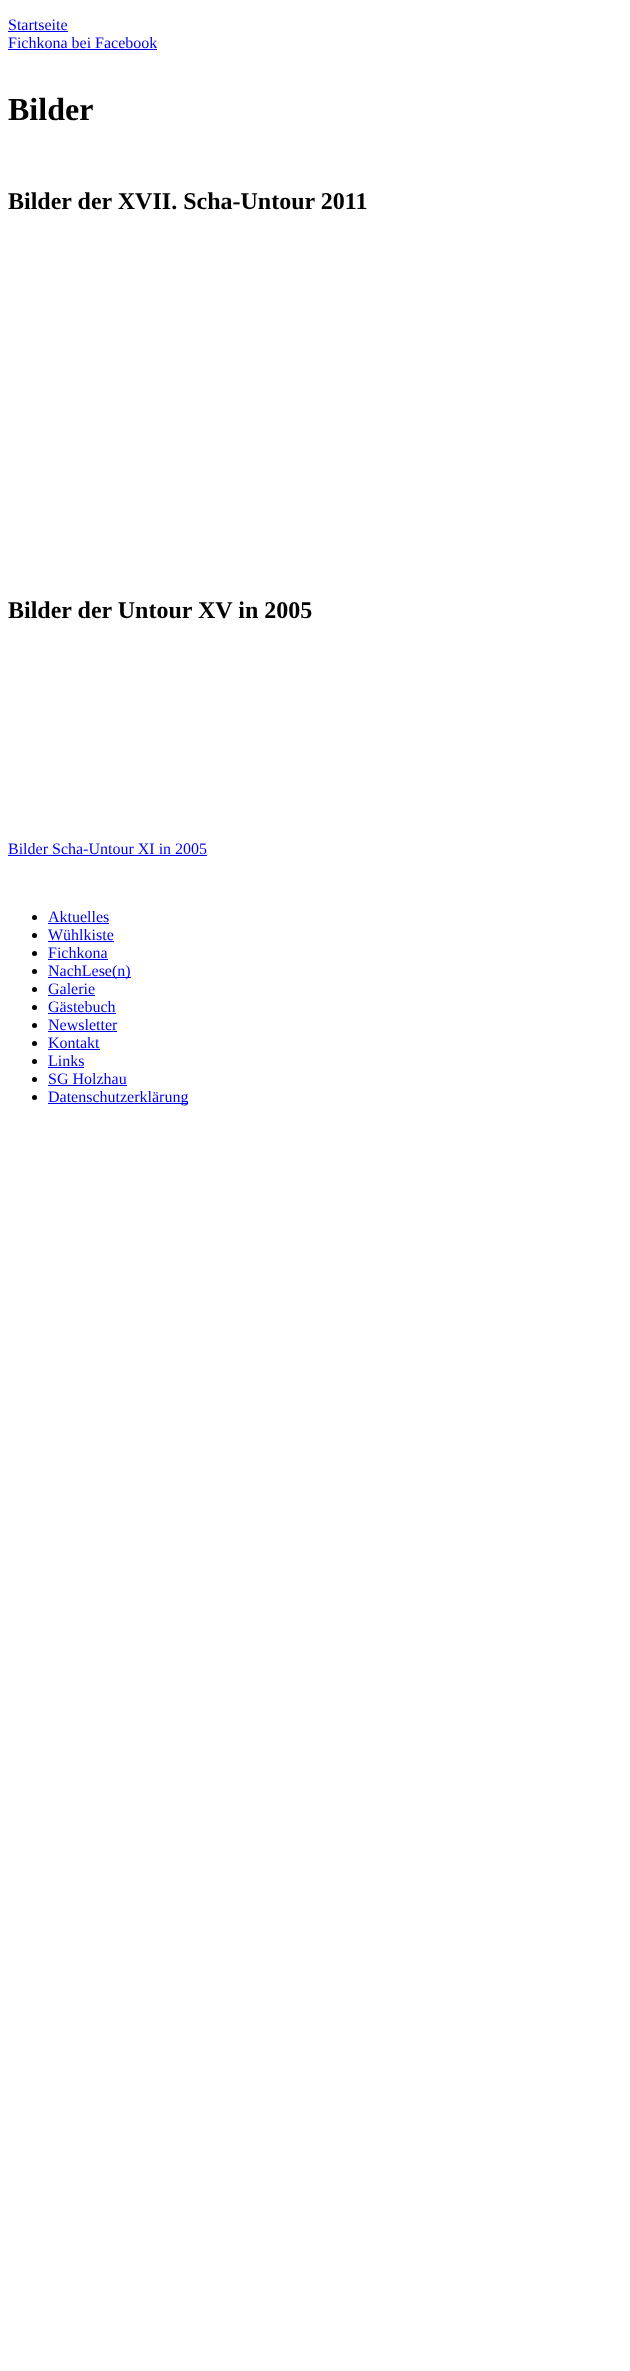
<svg xmlns="http://www.w3.org/2000/svg" width="630" height="2371">
<rect width="100%" height="100%" fill="#fff"/>
<text x="8" y="30" style="font-family:Liberation Serif;font-size:16px;fill:#00e">Startseite</text>
<rect x="8" y="31" width="60" height="1" fill="#00e"/>
<text x="8" y="48" style="font-family:Liberation Serif;font-size:16px;fill:#00e">Fichkona bei Facebook</text>
<rect x="8" y="49" width="149" height="1" fill="#00e"/>
<text x="8" y="120" style="font-family:Liberation Serif;font-size:32px;font-weight:bold;fill:#000">Bilder</text>
<text x="8" y="209" style="font-family:Liberation Serif;font-size:24px;font-weight:bold;fill:#000">Bilder der XVII. Scha-Untour 2011</text>
<text x="8" y="618" style="font-family:Liberation Serif;font-size:24px;font-weight:bold;fill:#000">Bilder der Untour XV in 2005</text>
<text x="8" y="854" style="font-family:Liberation Serif;font-size:16px;fill:#00e">Bilder Scha-Untour XI in 2005</text>
<rect x="8" y="855" width="199" height="1" fill="#00e"/>
<circle cx="34.5" cy="917.5" r="2.5" fill="#000"/>
<text x="48" y="922" style="font-family:Liberation Serif;font-size:16px;fill:#00e">Aktuelles</text>
<rect x="48" y="923" width="61" height="1" fill="#00e"/>
<circle cx="34.5" cy="935.5" r="2.5" fill="#000"/>
<text x="48" y="940" style="font-family:Liberation Serif;font-size:16px;fill:#00e">Wühlkiste</text>
<rect x="48" y="941" width="66" height="1" fill="#00e"/>
<circle cx="34.5" cy="953.5" r="2.5" fill="#000"/>
<text x="48" y="958" style="font-family:Liberation Serif;font-size:16px;fill:#00e">Fichkona</text>
<rect x="48" y="959" width="60" height="1" fill="#00e"/>
<circle cx="34.5" cy="971.5" r="2.5" fill="#000"/>
<rect x="48" y="977" width="83" height="1" fill="#00e"/>
<text x="48" y="976" style="font-family:Liberation Serif;font-size:16px;fill:#00e">NachLese(n)</text>
<circle cx="34.5" cy="989.5" r="2.5" fill="#000"/>
<text x="48" y="994" style="font-family:Liberation Serif;font-size:16px;fill:#00e">Galerie</text>
<rect x="48" y="995" width="47" height="1" fill="#00e"/>
<circle cx="34.5" cy="1007.5" r="2.5" fill="#000"/>
<text x="48" y="1012" style="font-family:Liberation Serif;font-size:16px;fill:#00e">Gästebuch</text>
<rect x="48" y="1013" width="68" height="1" fill="#00e"/>
<circle cx="34.5" cy="1025.5" r="2.5" fill="#000"/>
<text x="48" y="1030" style="font-family:Liberation Serif;font-size:16px;fill:#00e">Newsletter</text>
<rect x="48" y="1031" width="69" height="1" fill="#00e"/>
<circle cx="34.5" cy="1043.5" r="2.5" fill="#000"/>
<text x="48" y="1048" style="font-family:Liberation Serif;font-size:16px;fill:#00e">Kontakt</text>
<rect x="48" y="1049" width="52" height="1" fill="#00e"/>
<circle cx="34.5" cy="1061.5" r="2.5" fill="#000"/>
<text x="48" y="1066" style="font-family:Liberation Serif;font-size:16px;fill:#00e">Links</text>
<rect x="48" y="1067" width="36" height="1" fill="#00e"/>
<circle cx="34.5" cy="1079.5" r="2.5" fill="#000"/>
<text x="48" y="1084" style="font-family:Liberation Serif;font-size:16px;fill:#00e">SG Holzhau</text>
<rect x="48" y="1085" width="79" height="1" fill="#00e"/>
<circle cx="34.5" cy="1097.5" r="2.5" fill="#000"/>
<rect x="48" y="1103" width="140" height="1" fill="#00e"/>
<text x="48" y="1102" style="font-family:Liberation Serif;font-size:16px;fill:#00e">Datenschutzerklärung</text>
</svg>
